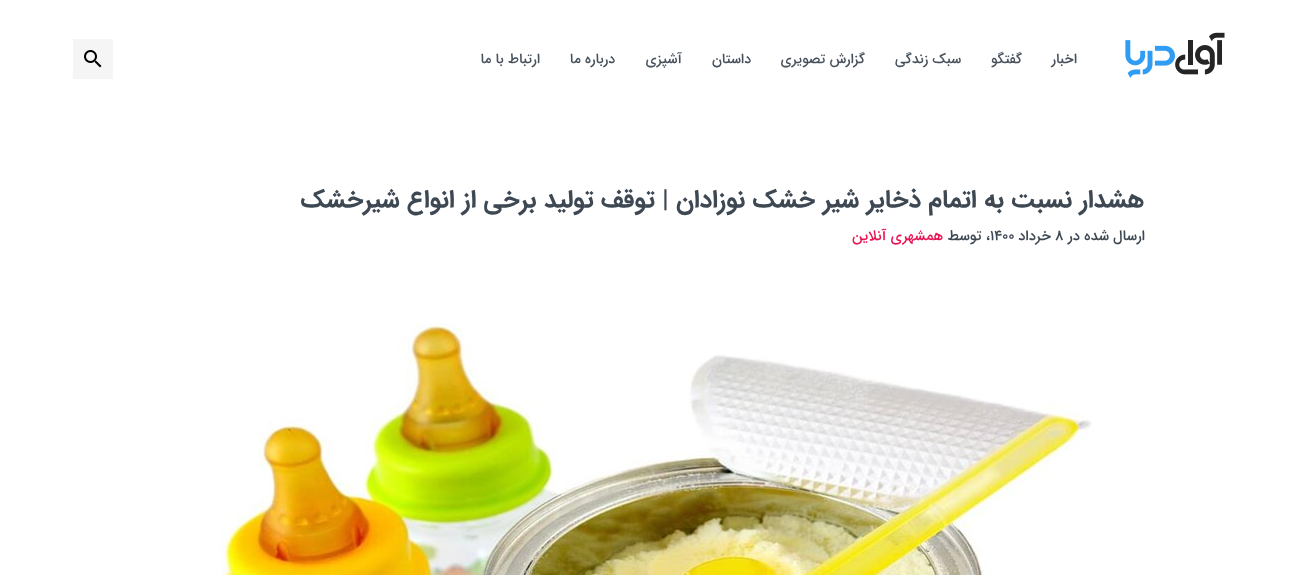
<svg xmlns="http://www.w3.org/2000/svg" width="1291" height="575">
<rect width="100%" height="100%" fill="#fff"/>
<image x="1125" y="32" width="100" height="46" href="media/1.png"/>
<text x="1077" y="63" style="font-family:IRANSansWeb;font-size:14px;font-weight:500;direction:rtl;fill:#47515c">اخبار</text>
<text x="1022" y="63" style="font-family:IRANSansWeb;font-size:14px;font-weight:500;direction:rtl;fill:#47515c">گفتگو</text>
<text x="961" y="63" style="font-family:IRANSansWeb;font-size:14px;font-weight:500;direction:rtl;fill:#47515c">سبک زندگی</text>
<text x="865" y="63" style="font-family:IRANSansWeb;font-size:14px;font-weight:500;direction:rtl;fill:#47515c">گزارش تصویری</text>
<text x="751" y="63" style="font-family:IRANSansWeb;font-size:14px;font-weight:500;direction:rtl;fill:#47515c">داستان</text>
<text x="682" y="63" style="font-family:IRANSansWeb;font-size:14px;font-weight:500;direction:rtl;fill:#47515c">آشپزی</text>
<text x="615" y="63" style="font-family:IRANSansWeb;font-size:14px;font-weight:500;direction:rtl;fill:#47515c">درباره ما</text>
<text x="540" y="63" style="font-family:IRANSansWeb;font-size:14px;font-weight:500;direction:rtl;fill:#47515c">ارتباط با ما</text>
<image x="84" y="50" width="18" height="18" href="media/2.png"/>
<rect x="73" y="39" width="40" height="40" fill="#0000000a"/>
<text x="1144" y="207" style="font-family:IRANSansWeb;font-size:25px;font-weight:bold;direction:rtl;fill:#3d4853">هشدار نسبت به اتمام ذخایر شیر خشک نوزادان | توقف تولید برخی از انواع شیرخشک</text>
<text x="1145" y="240" style="font-family:IRANSansWeb;font-size:14.5px;font-weight:500;direction:rtl;fill:#3d4853">ارسال شده در</text>
<text x="1055" y="240" style="font-family:IRANSansWeb;font-size:14.5px;font-weight:500;fill:#3d4853">۸</text>
<text x="1051" y="240" style="font-family:IRANSansWeb;font-size:14.5px;font-weight:500;direction:rtl;fill:#3d4853">خرداد</text>
<text x="990" y="240" style="font-family:IRANSansWeb;font-size:14.5px;font-weight:500;fill:#3d4853">۱۴۰۰</text>
<text x="990" y="240" style="font-family:IRANSansWeb;font-size:14.5px;font-weight:500;direction:rtl;fill:#3d4853">، توسط</text>
<text x="943" y="240" style="font-family:IRANSansWeb;font-size:14.5px;font-weight:500;direction:rtl;fill:#e81451">همشهری آنلاین</text>
<image x="221" y="323" width="871" height="252" href="media/3.png"/>
</svg>
